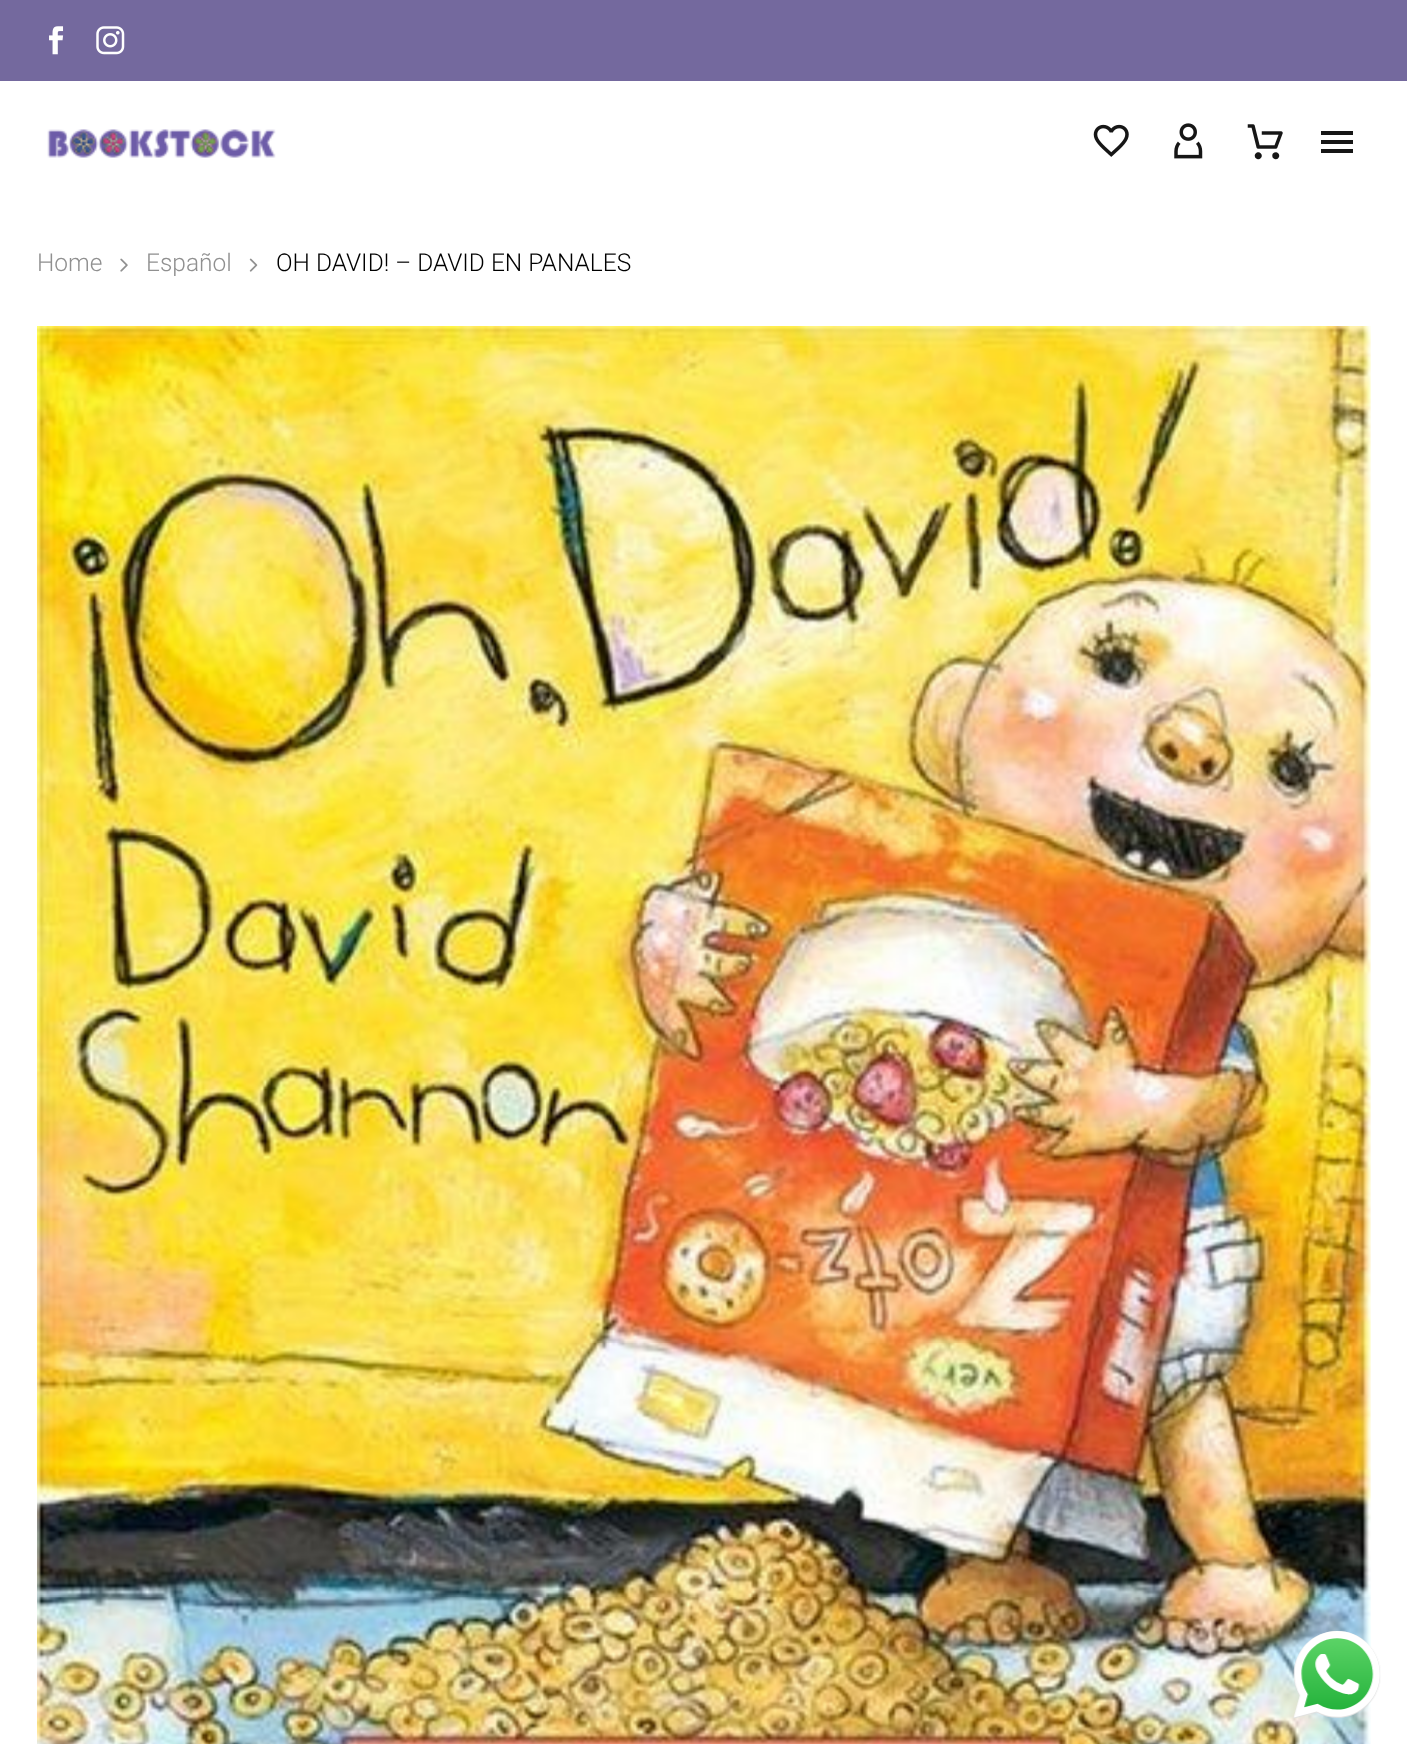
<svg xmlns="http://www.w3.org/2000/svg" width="1407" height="1744">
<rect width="100%" height="100%" fill="#fff"/>
<rect width="1407" height="81" fill="#74699e"/>
<image x="49" y="26" width="15" height="29" href="media/1.png"/>
<image x="96" y="26" width="29" height="29" href="media/2.png"/>
<image x="47" y="129" width="229" height="29" href="media/3.png"/>
<image x="1093" y="124" width="36" height="33" href="media/4.png"/>
<image x="1174" y="123" width="29" height="36" href="media/5.png"/>
<image x="1247" y="124" width="36" height="36" href="media/6.png"/>
<rect x="1321" y="131" width="32" height="4" fill="#161616"/>
<rect x="1321" y="140" width="32" height="4" fill="#161616"/>
<rect x="1321" y="149" width="32" height="4" fill="#161616"/>
<text x="37" y="271" style="font-family:Roboto;font-size:24.5px;font-weight:300;fill:#909090">Home</text>
<image x="120" y="258" width="8" height="14" href="media/7.png"/>
<text x="146" y="271" style="font-family:Roboto;font-size:24.5px;font-weight:300;fill:#909090">Español</text>
<image x="249" y="258" width="9" height="14" href="media/8.png"/>
<text x="276" y="271" style="font-family:Roboto;font-size:24.5px;font-weight:300;fill:#000">OH DAVID! – DAVID EN PANALES</text>
<image x="37" y="326" width="1334" height="1418" href="media/9.png"/>
<image x="1293" y="1631" width="88" height="87" href="media/10.png"/>
</svg>
